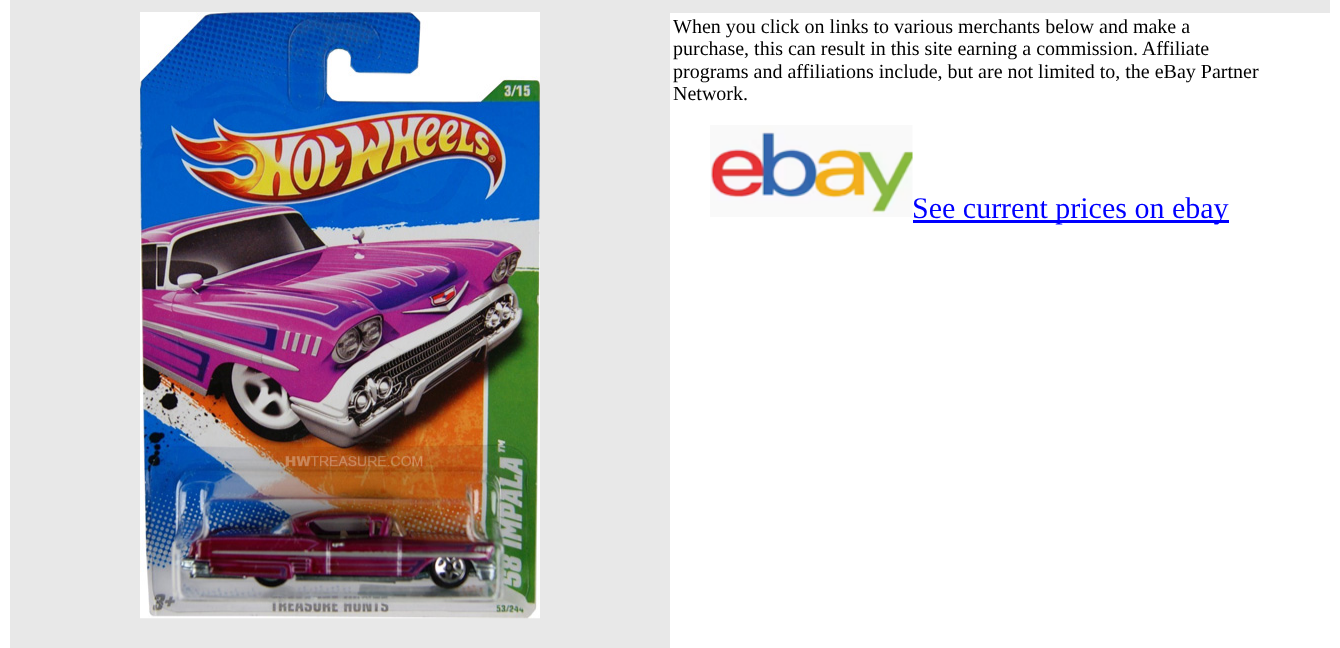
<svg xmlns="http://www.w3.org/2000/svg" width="1340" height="648">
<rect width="100%" height="100%" fill="#fff"/>
<rect x="10" width="1320" height="13" fill="#e8e8e8"/>
<rect x="10" y="13" width="660" height="635" fill="#e8e8e8"/>
<image x="140" y="12" width="400" height="607" href="media/1.png"/>
<text x="673" y="33" style="font-family:Liberation Serif;font-size:20px;fill:#000">When you click on links to various merchants below and make a</text>
<text x="673" y="55" style="font-family:Liberation Serif;font-size:20px;fill:#000">purchase, this can result in this site earning a commission. Affiliate</text>
<text x="673" y="78" style="font-family:Liberation Serif;font-size:20px;fill:#000">programs and affiliations include, but are not limited to, the eBay Partner</text>
<text x="673" y="100" style="font-family:Liberation Serif;font-size:20px;fill:#000">Network.</text>
<image x="710" y="125" width="203" height="92" href="media/2.png"/>
<rect x="913" y="220" width="316" height="3" fill="#00f"/>
<text x="912" y="218" style="font-family:Liberation Serif;font-size:30px;fill:#00f">See current prices on ebay</text>
</svg>
